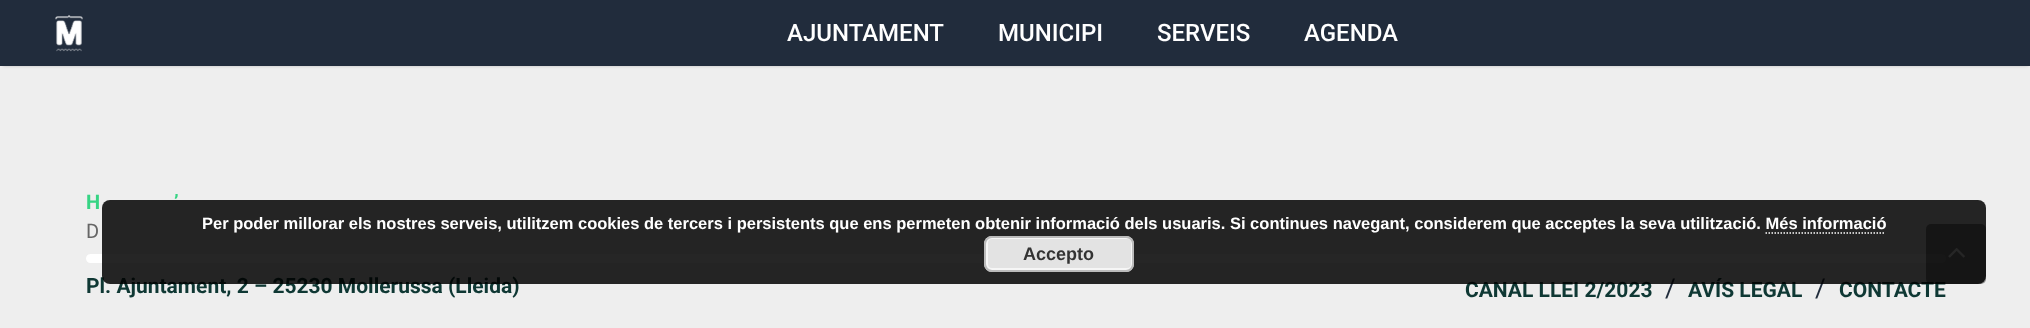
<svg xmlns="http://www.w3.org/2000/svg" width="2030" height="328">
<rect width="100%" height="100%" fill="#eee"/>
<rect x="3" y="6" width="2025" height="60" fill="#00000033" filter="blur(1.5px)"/>
<rect width="2030" height="66" fill="#212c3c"/>
<image x="55" y="15" width="28" height="37" href="media/1.png"/>
<text x="787" y="41" style="font-family:Roboto;font-size:24px;font-weight:500;fill:#fff">AJUNTAMENT</text>
<text x="998" y="41" style="font-family:Roboto;font-size:24px;font-weight:500;fill:#fff">MUNICIPI</text>
<text x="1157" y="41" style="font-family:Roboto;font-size:24px;font-weight:500;fill:#fff">SERVEIS</text>
<text x="1304" y="41" style="font-family:Roboto;font-size:24px;font-weight:500;fill:#fff">AGENDA</text>
<text x="86" y="209" style="font-family:Roboto;font-size:20px;font-weight:bold;fill:#36d484">H</text>
<text x="174" y="209" style="font-family:Roboto;font-size:20px;font-weight:bold;fill:#36d484">’</text>
<text x="86" y="238" style="font-family:Roboto;font-size:20px;fill:#666">D</text>
<path d="M90.5 254h925.5v9h-925.5c-2.5 0-4.5-2-4.5-4.5c0-2.5 2-4.5 4.5-4.5z" fill="#fff"/>
<path d="M1016 254h925.5c2.5 0 4.5 2 4.5 4.5c0 2.5-2 4.5-4.5 4.5h-925.5z" fill="#fff"/>
<text x="86" y="293" style="font-family:Roboto;font-size:21px;font-weight:bold;fill:#0f3834">Pl. Ajuntament, 2 – 25230 Mollerussa (Lleida)</text>
<text x="1465" y="297" style="font-family:Roboto;font-size:21px;font-weight:bold;fill:#0f3834">CANAL LLEI 2/2023</text>
<text x="1665" y="297" style="font-family:Roboto;font-size:26px;fill:#212c3c">/</text>
<text x="1688" y="297" style="font-family:Roboto;font-size:21px;font-weight:bold;fill:#0f3834">AVÍS LEGAL</text>
<text x="1815" y="297" style="font-family:Roboto;font-size:26px;fill:#212c3c">/</text>
<text x="1839" y="297" style="font-family:Roboto;font-size:21px;font-weight:bold;fill:#0f3834">CONTACTE</text>
<rect x="1926" y="224" width="60" height="60" rx="5" fill="#00000066"/>
<image x="1948" y="248" width="17" height="10" href="media/2.png"/>
<rect x="102" y="200" width="1884" height="84" rx="8" fill="#000000d9"/>
<text x="202" y="229" style="font-family:Liberation Sans;font-size:16.5px;font-weight:bold;fill:#fff">Per poder millorar els nostres serveis, utilitzem cookies de tercers i persistents que ens permeten obtenir informació dels usuaris. Si continues navegant, considerem que acceptes la seva utilització. Més informació</text>
<path d="M1765.5 233h120" fill="none" stroke="#fff" stroke-width="1.5" stroke-dasharray="1.5 1.5"/>
<rect x="984" y="236" width="150" height="36" rx="8" fill="#e3e3e3"/>
<rect x="987" y="238" width="145" height="31" rx="5" fill="none" stroke="#f6f6f6" stroke-width="2"/>
<rect x="985" y="237" width="148" height="34" rx="7" fill="none" stroke="#bbb" stroke-width="2"/>
<text x="1023" y="260" style="font-family:Liberation Sans;font-size:18px;font-weight:bold;fill:#333">Accepto</text>
</svg>
